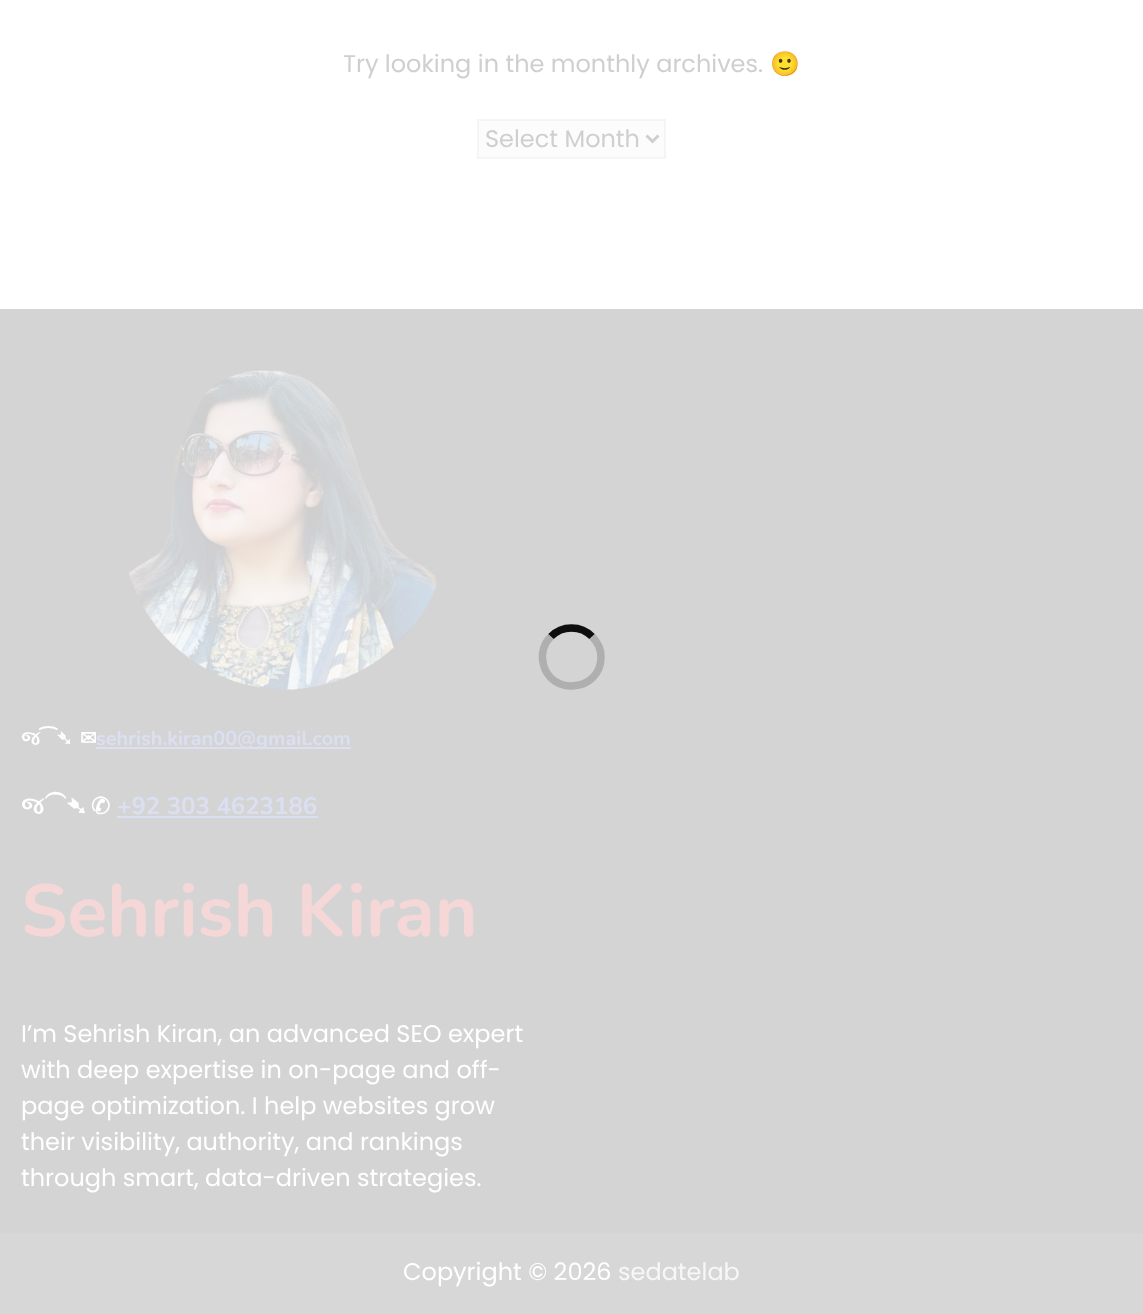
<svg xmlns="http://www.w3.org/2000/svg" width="1143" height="1314">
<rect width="100%" height="100%" fill="#fff"/>
<text x="343" y="72" style="font-family:Poppins;font-size:24px;fill:#cfcfcf">Try looking in the monthly archives.</text>
<text x="770" y="72" style="font-family:Noto Color Emoji;font-size:24px;fill:#cfcfcf">🙂</text>
<rect x="478" y="120" width="187" height="38" fill="#fcfcfc" stroke="#f5f5f5" stroke-width="2"/>
<path d="M646.5 135.5l6 6l6-6" fill="none" stroke="#cfcfcf" stroke-width="3"/>
<text x="485" y="147" style="font-family:Poppins;font-size:24px;fill:#cfcfcf">Select Month</text>
<rect y="309" width="1143" height="924" fill="#d4d4d4"/>
<path d="M551 636.5c11-11.5 30-11.5 41 0" fill="none" stroke="#0e0e0e" stroke-width="7.5"/>
<path d="M592 636.5c5.5 5.5 9 13 9 20.5c0 35-51.5 40-58 5.5c-2-9.5 1-19.5 8-26" fill="none" stroke="#1c1c1c33" stroke-width="7.5"/>
<image x="128" y="370" width="309" height="320" href="media/1.png"/>
<text x="21" y="745" style="font-family:FreeSerif;font-size:19.9px;font-weight:bold;fill:#fff">જ</text>
<text x="40" y="745" word-spacing="1" style="font-family:DejaVu Sans;font-size:19.9px;font-weight:bold;fill:#fff">⁀➴ ✉︎</text>
<rect x="96" y="747" width="255" height="2" fill="#dae0f2"/>
<text x="96" y="745" style="font-family:Nunito;font-size:19.9px;font-weight:bold;fill:#dae0f2">sehrish.kiran00@gmail.com</text>
<text x="21" y="814" style="font-family:FreeSerif;font-size:24px;font-weight:bold;fill:#fff">જ⁀➴ ✆</text>
<text x="117" y="814" style="font-family:Nunito;font-size:24px;font-weight:bold;fill:#dae0f2">+92 303 4623186</text>
<rect x="117" y="816" width="201" height="2" fill="#dae0f2"/>
<text x="21" y="936" style="font-family:Nunito;font-size:73.5px;font-weight:bold;fill:#f6d7d7">Sehrish Kiran</text>
<text x="21" y="1042" style="font-family:Poppins;font-size:24px;fill:#fff">I’m Sehrish Kiran, an advanced SEO expert</text>
<text x="21" y="1078" style="font-family:Poppins;font-size:24px;fill:#fff">with deep expertise in on-page and off-</text>
<text x="21" y="1114" style="font-family:Poppins;font-size:24px;fill:#fff">page optimization. I help websites grow</text>
<text x="21" y="1150" style="font-family:Poppins;font-size:24px;fill:#fff">their visibility, authority, and rankings</text>
<text x="21" y="1186" style="font-family:Poppins;font-size:24px;fill:#fff">through smart, data-driven strategies.</text>
<rect y="1233" width="1143" height="81" fill="#d7d7d7"/>
<text x="403" y="1280" style="font-family:Poppins;font-size:24px;fill:#fff">Copyright © 2026</text>
<text x="618" y="1280" style="font-family:Poppins;font-size:24px;fill:#f7f7f7">sedatelab</text>
</svg>
